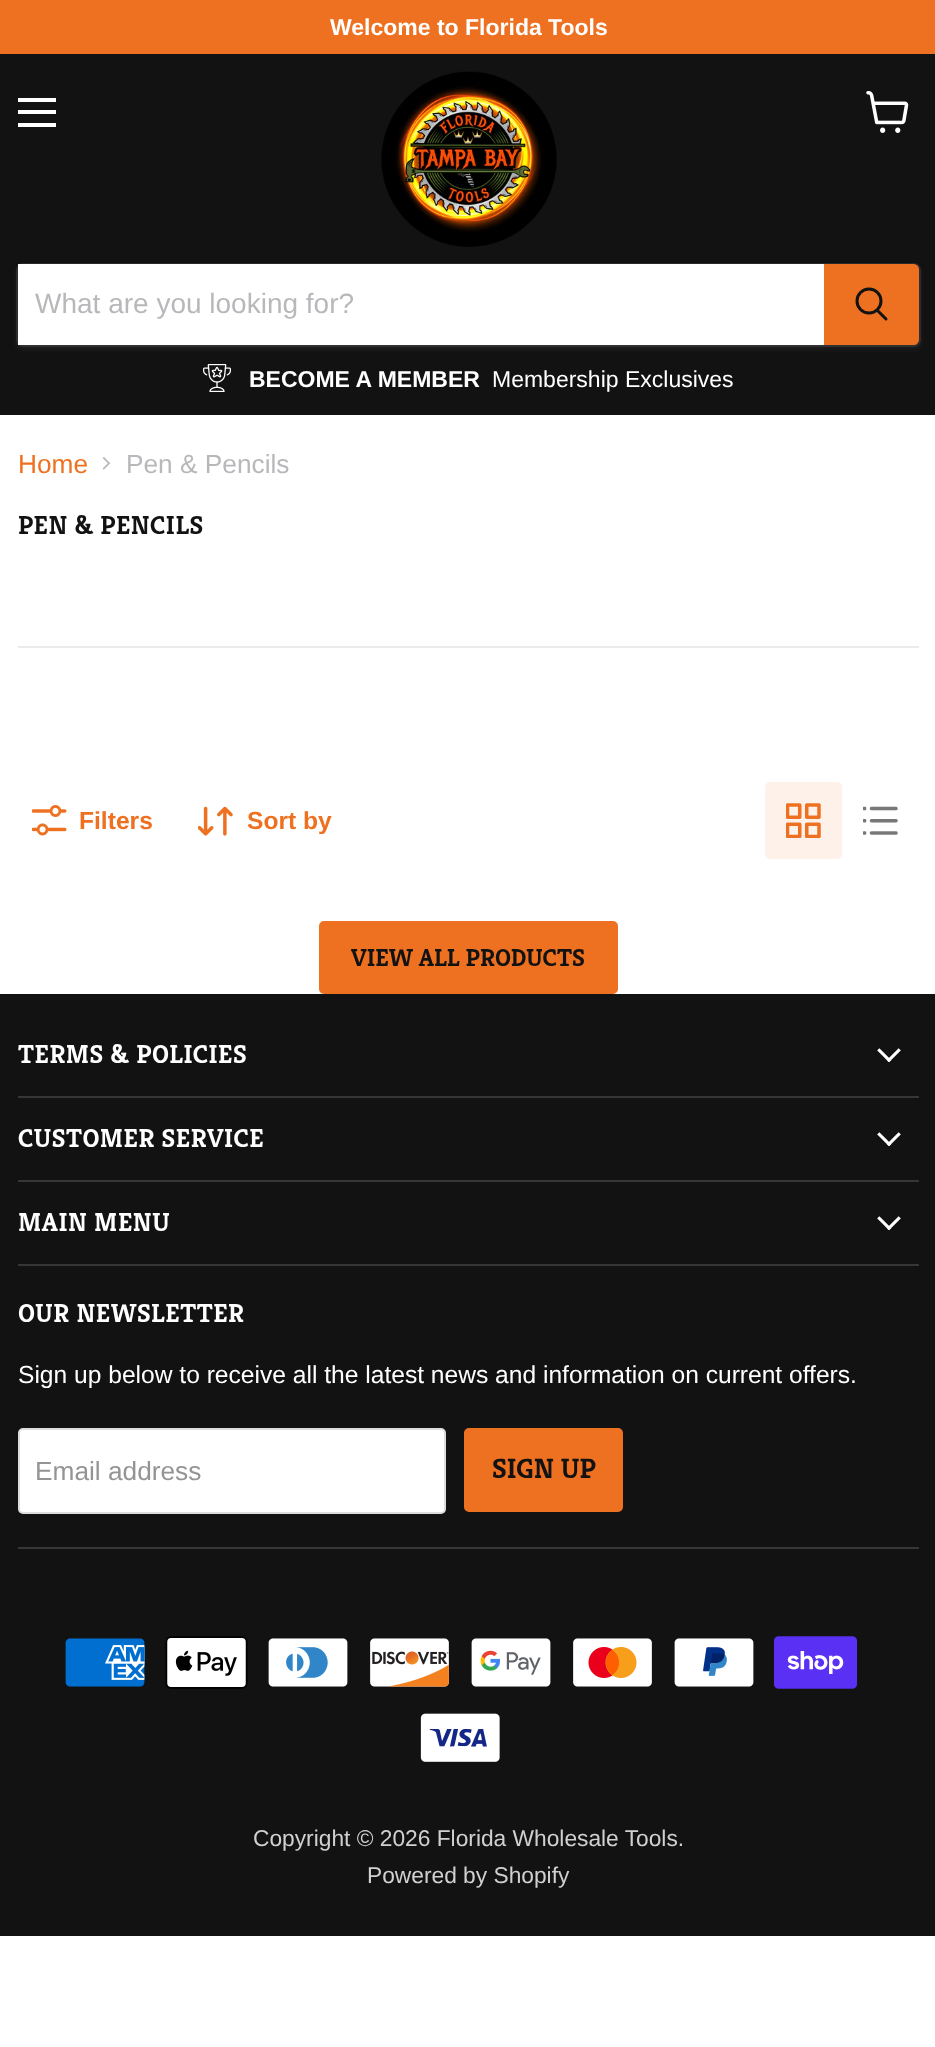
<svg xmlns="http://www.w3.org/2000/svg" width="935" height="2047">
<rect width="100%" height="100%" fill="#fff"/>
<rect width="935" height="54" fill="#ee7121"/>
<text x="330" y="35" style="font-family:Liberation Sans;font-size:23px;font-weight:bold;fill:#fff">Welcome to Florida Tools</text>
<rect y="54" width="935" height="361" fill="#121212"/>
<rect x="18" y="98" width="38" height="4" fill="#fff"/>
<rect x="18" y="110" width="38" height="4" fill="#fff"/>
<rect x="18" y="123" width="38" height="4" fill="#fff"/>
<image x="866" y="91" width="43" height="42" href="media/1.png"/>
<image x="381" y="71" width="176" height="176" href="media/2.png"/>
<rect x="16" y="266" width="905" height="84" rx="7" fill="#8080801c" filter="blur(2.5px)"/>
<rect x="17" y="264" width="903" height="82" rx="6" fill="none" stroke="#80808033" stroke-width="2"/>
<rect x="18" y="264" width="806" height="81" fill="#fff"/>
<text x="35" y="313" style="font-family:Liberation Sans;font-size:28px;fill:#b8b8bb">What are you looking for?</text>
<path d="M825 265h89c2 0 4 2 4 4v71c0 2-2 4-4 4h-89z" fill="#ee7121" stroke="#ee7121" stroke-width="2"/>
<path d="M886 319l-8.5-8.5" fill="none" stroke="#121212" stroke-width="3" stroke-linecap="round"/>
<circle cx="869" cy="301" r="12" fill="none" stroke="#121212" stroke-width="3"/>
<image x="203" y="364" width="28" height="28" href="media/3.png"/>
<text x="249" y="387" style="font-family:Liberation Sans;font-size:23px;font-weight:bold;fill:#fff">BECOME A MEMBER</text>
<text x="492" y="387" style="font-family:Liberation Sans;font-size:23px;fill:#fff">Membership Exclusives</text>
<text x="18" y="473" style="font-family:Liberation Sans;font-size:26.25px;fill:#ee7121">Home</text>
<image x="102" y="457" width="9" height="13" href="media/4.png"/>
<text x="126" y="473" style="font-family:Liberation Sans;font-size:26.25px;fill:#b8b8bb">Pen &amp; Pencils</text>
<text x="18" y="534" style="font-family:Kreon;font-size:26px;font-weight:bold;letter-spacing:0.5px;fill:#121212">PEN &amp; PENCILS</text>
<rect x="18" y="646" width="901" height="2" fill="#ebebeb"/>
<image x="32" y="805" width="35" height="31" href="media/5.png"/>
<text x="79" y="829" style="font-family:Liberation Sans;font-size:24.6px;font-weight:bold;fill:#ee7121">Filters</text>
<image x="198" y="806" width="35" height="30" href="media/6.png"/>
<text x="247" y="829" style="font-family:Liberation Sans;font-size:24.6px;font-weight:bold;fill:#ee7121">Sort by</text>
<rect x="765" y="782" width="77" height="77" rx="5" fill="#fdf1e9"/>
<image x="786" y="803" width="35" height="35" href="media/7.png"/>
<image x="863" y="806" width="35" height="29" href="media/8.png"/>
<rect x="320" y="922" width="297" height="71" rx="4" fill="#ee7121" stroke="#ee7121" stroke-width="2"/>
<text x="351" y="966" style="font-family:Kreon;font-size:24.5px;font-weight:bold;fill:#121212">VIEW ALL PRODUCTS</text>
<rect y="994" width="935" height="942" fill="#121212"/>
<rect x="18" y="1096" width="901" height="2" fill="#363636"/>
<text x="18" y="1063" style="font-family:Kreon;font-size:26px;font-weight:bold;letter-spacing:0.5px;fill:#fff">TERMS &amp; POLICIES</text>
<image x="877" y="1048" width="24" height="14" href="media/9.png"/>
<rect x="18" y="1180" width="901" height="2" fill="#363636"/>
<text x="18" y="1147" style="font-family:Kreon;font-size:26px;font-weight:bold;letter-spacing:0.5px;fill:#fff">CUSTOMER SERVICE</text>
<image x="877" y="1132" width="24" height="14" href="media/9.png"/>
<rect x="18" y="1264" width="901" height="2" fill="#363636"/>
<text x="18" y="1231" style="font-family:Kreon;font-size:26px;font-weight:bold;letter-spacing:0.5px;fill:#fff">MAIN MENU</text>
<image x="877" y="1216" width="24" height="14" href="media/9.png"/>
<rect x="18" y="1547" width="901" height="2" fill="#363636"/>
<text x="18" y="1322" style="font-family:Kreon;font-size:26px;font-weight:bold;letter-spacing:0.5px;fill:#fff">OUR NEWSLETTER</text>
<text x="18" y="1383" style="font-family:Liberation Sans;font-size:24.6px;fill:#fff">Sign up below to receive all the latest news and information on current offers.</text>
<rect x="19" y="1429" width="426" height="84" rx="4" fill="#fff" stroke="#ddd" stroke-width="2"/>
<text x="35" y="1480" style="font-family:Liberation Sans;font-size:26.25px;fill:#949494">Email address</text>
<rect x="465" y="1429" width="157" height="82" rx="4" fill="#ee7121" stroke="#ee7121" stroke-width="2"/>
<text x="492" y="1478" style="font-family:Kreon;font-size:28px;font-weight:bold;fill:#121212">SIGN UP</text>
<image x="65" y="1638" width="80" height="49" href="media/10.png"/>
<image x="165" y="1636" width="83" height="53" href="media/11.png"/>
<image x="268" y="1638" width="80" height="49" href="media/12.png"/>
<image x="370" y="1638" width="79" height="49" href="media/13.png"/>
<image x="471" y="1638" width="80" height="49" href="media/14.png"/>
<image x="573" y="1638" width="79" height="49" href="media/15.png"/>
<image x="674" y="1638" width="80" height="49" href="media/16.png"/>
<image x="774" y="1636" width="84" height="53" href="media/17.png"/>
<image x="420" y="1713" width="80" height="49" href="media/18.png"/>
<text x="253" y="1846" style="font-family:Liberation Sans;font-size:22.75px;fill:#d0d0d0">Copyright © 2026 Florida Wholesale Tools.</text>
<text x="367" y="1883" style="font-family:Liberation Sans;font-size:22.75px;fill:#d0d0d0">Powered by Shopify</text>
</svg>
